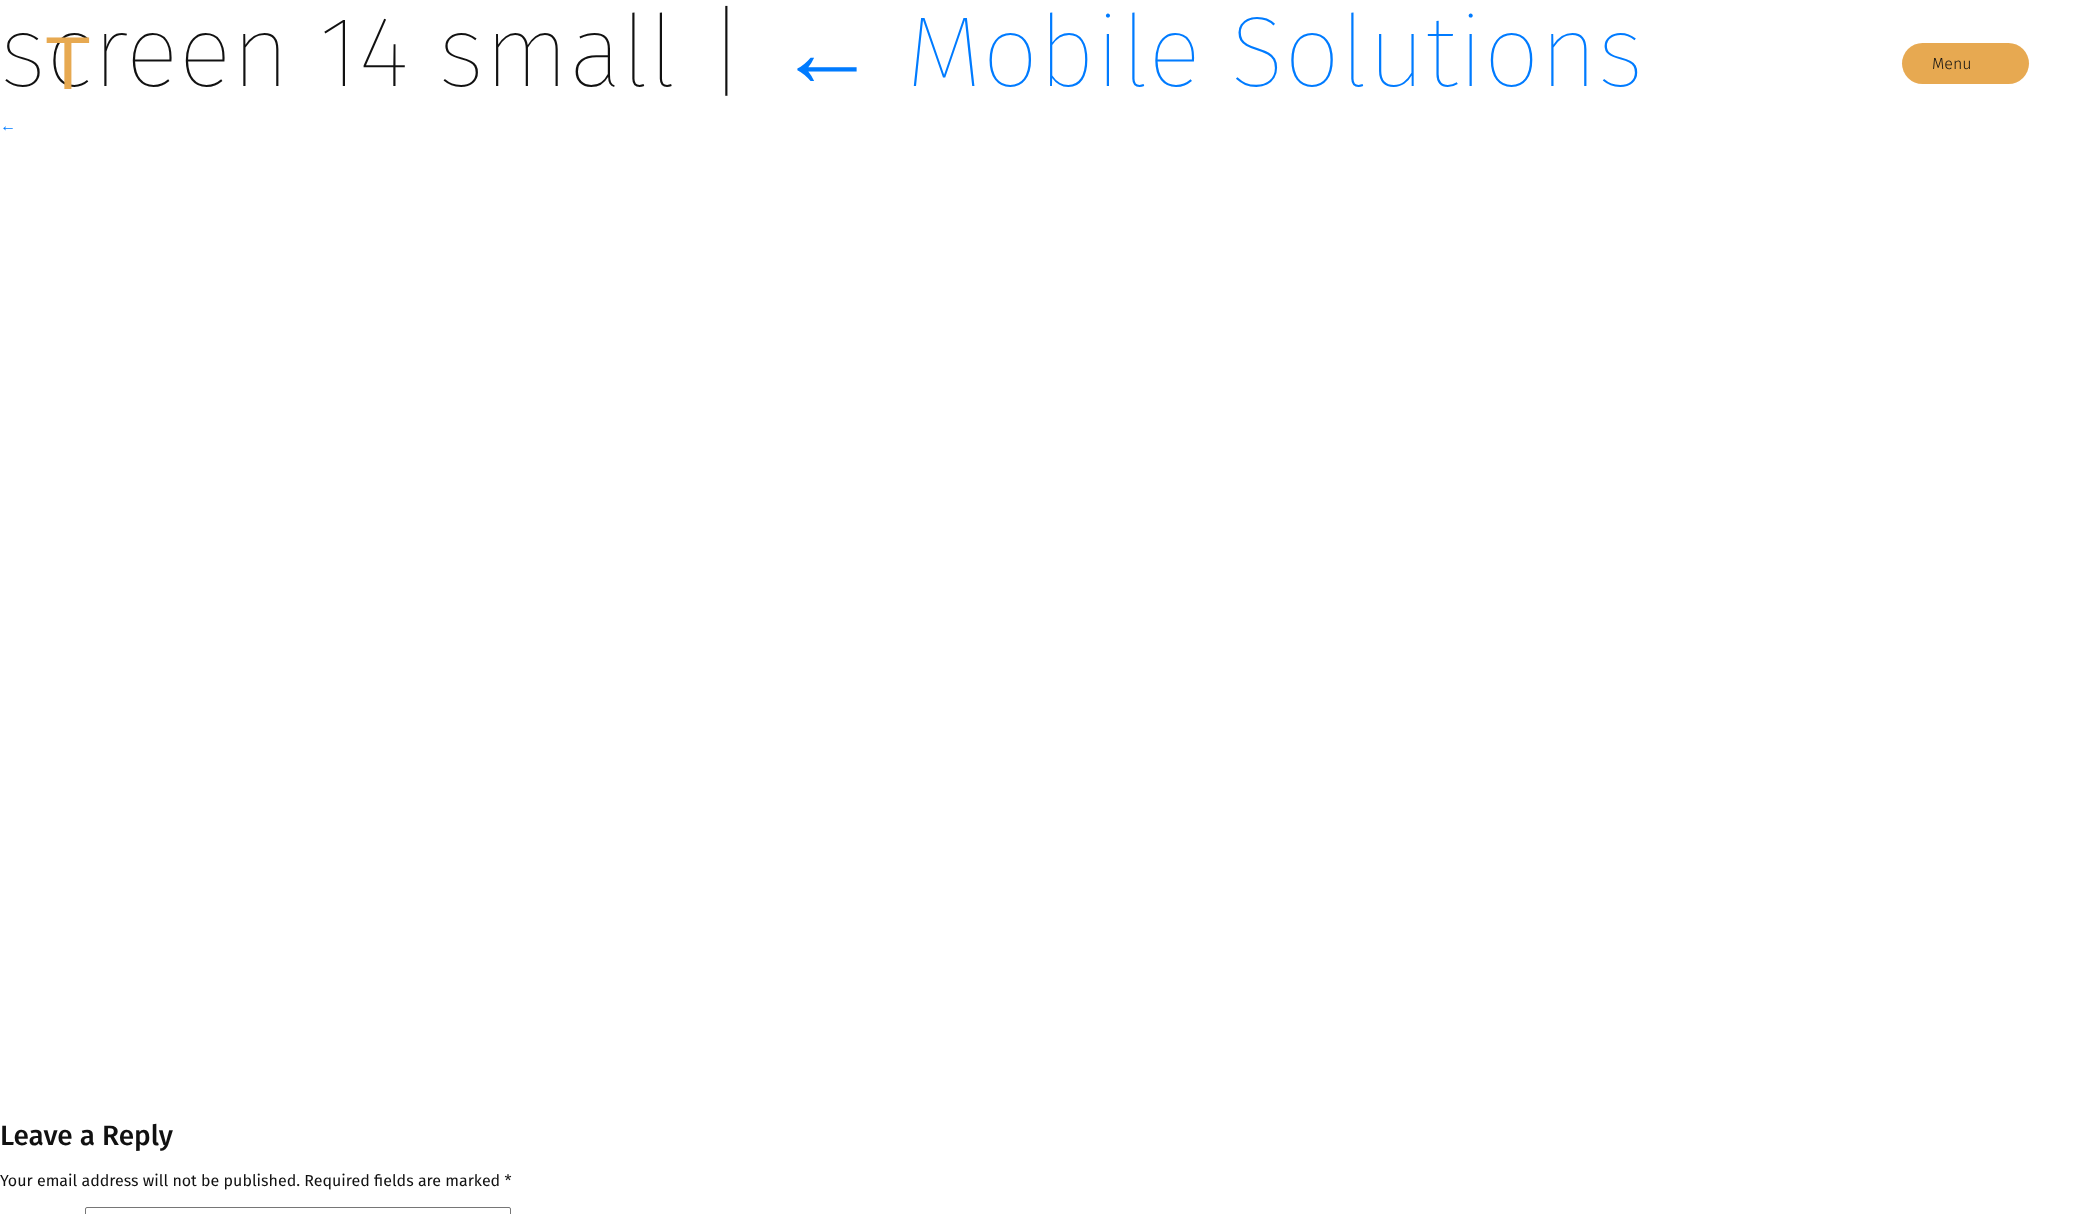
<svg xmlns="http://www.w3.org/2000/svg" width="2084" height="1214">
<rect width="100%" height="100%" fill="#fff"/>
<text x="0" y="86" style="font-family:Fira Sans;font-size:100px;font-weight:100;fill:#111">screen 14 small |</text>
<text x="777" y="86" style="font-family:Liberation Sans;font-size:100px;fill:#007bff">←</text>
<text x="906" y="86" style="font-family:Fira Sans;font-size:100px;font-weight:100;fill:#007bff">Mobile Solutions</text>
<text x="0" y="131" style="font-family:Liberation Sans;font-size:16px;fill:#007bff">←</text>
<text x="0" y="1145" style="font-family:Fira Sans;font-size:28px;font-weight:500;fill:#111">Leave a Reply</text>
<text x="0" y="1186" style="font-family:Fira Sans;font-size:16px;fill:#111">Your email address will not be published. Required fields are marked *</text>
<rect x="85.5" y="1207.5" width="425" height="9" rx="1.5" fill="none" stroke="#767676"/>
<text x="45" y="89" style="font-family:Liberation Sans;font-size:75px;fill:#e7a951">T</text>
<rect x="1902" y="43" width="127" height="41" rx="20.5" fill="#e7a951"/>
<text x="1932" y="69" style="font-family:Fira Sans;font-size:16px;font-weight:300;fill:#111">Menu</text>
</svg>
